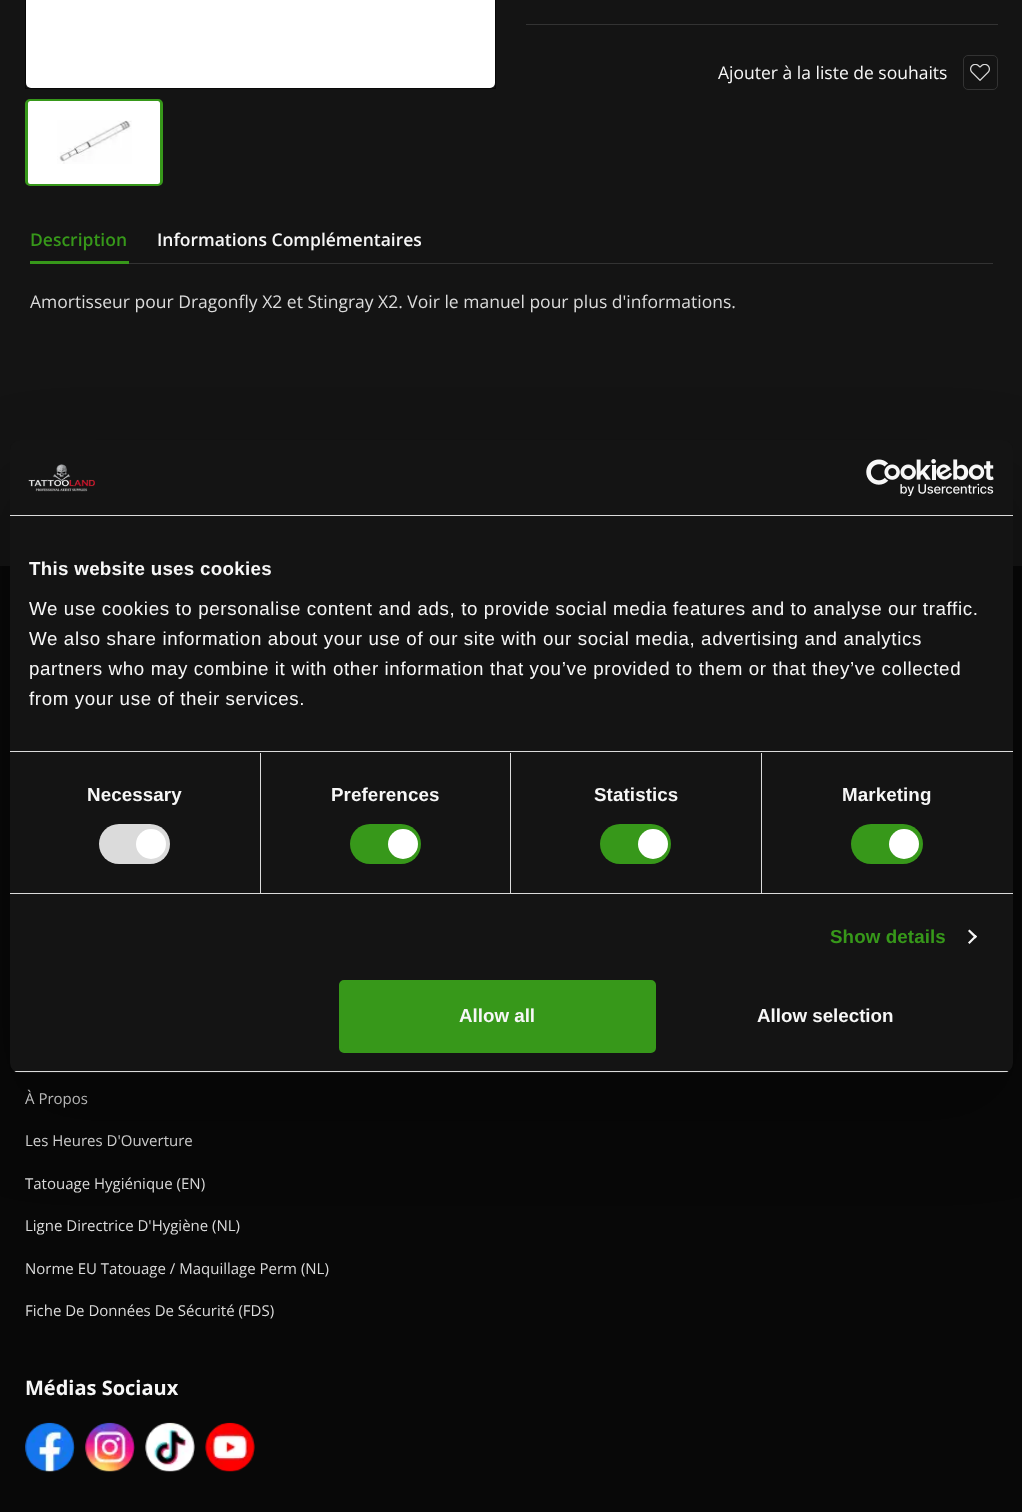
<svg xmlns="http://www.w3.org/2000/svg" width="1022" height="1512">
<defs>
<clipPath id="clip1"><rect x="10" y="440" width="1003" height="633" rx="10"/></clipPath>
</defs>
<rect width="100%" height="100%" fill="#141414"/>
<rect x="25.5" y="-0.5" width="470" height="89" fill="none" stroke="#080808"/>
<rect x="26" y="-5" width="469" height="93" rx="5" fill="#fff"/>
<rect x="26.5" y="100.5" width="135" height="84" rx="3.5" fill="none" stroke="#37981a" stroke-width="3"/>
<rect x="28" y="101" width="132" height="83" rx="2.5" fill="#fff"/>
<image x="57" y="120" width="75" height="44" href="media/1.png"/>
<rect x="526" y="24" width="472" height="1" fill="#333"/>
<text x="718" y="79" style="font-family:Open Sans;font-size:17.5px;fill:#f7f7f7">Ajouter à la liste de souhaits</text>
<rect x="963.5" y="55.5" width="34" height="34" rx="4.5" fill="none" stroke="#333"/>
<image x="970" y="64" width="20" height="17" href="media/2.png"/>
<text x="30" y="246" style="font-family:Open Sans;font-size:17.5px;font-weight:600;fill:#37981a">Description</text>
<text x="157" y="246" style="font-family:Open Sans;font-size:17.5px;font-weight:600;fill:#f7f7f7">Informations Complémentaires</text>
<rect x="30" y="261" width="99" height="3" fill="#37981a"/>
<rect x="129" y="263" width="864" height="1" fill="#333"/>
<text x="30" y="308" style="font-family:Open Sans;font-size:17.5px;fill:#dbdbdb">Amortisseur pour Dragonfly X2 et Stingray X2. Voir le manuel pour plus d'informations.</text>
<rect y="566" width="1022" height="946" fill="#080808"/>
<text x="25" y="1104" style="font-family:Open Sans;font-size:15px;fill:#dbdbdb">À Propos</text>
<text x="25" y="1146" style="font-family:Open Sans;font-size:15px;fill:#dbdbdb">Les Heures D'Ouverture</text>
<text x="25" y="1189" style="font-family:Open Sans;font-size:15px;fill:#dbdbdb">Tatouage Hygiénique (EN)</text>
<text x="25" y="1231" style="font-family:Open Sans;font-size:15px;fill:#dbdbdb">Ligne Directrice D'Hygiène (NL)</text>
<text x="25" y="1274" style="font-family:Open Sans;font-size:15px;fill:#dbdbdb">Norme EU Tatouage / Maquillage Perm (NL)</text>
<text x="25" y="1316" style="font-family:Open Sans;font-size:15px;fill:#dbdbdb">Fiche De Données De Sécurité (FDS)</text>
<text x="25" y="1395" style="font-family:Open Sans;font-size:20px;font-weight:bold;fill:#f7f7f7">Médias Sociaux</text>
<image x="25" y="1422" width="50" height="50" href="media/3.png"/>
<image x="85" y="1422" width="50" height="50" href="media/4.png"/>
<image x="145" y="1422" width="50" height="50" href="media/5.png"/>
<image x="205" y="1422" width="50" height="50" href="media/6.png"/>
<rect x="10" y="480" width="1003" height="633" rx="10" fill="#0000004d" filter="blur(42.5px)"/>
<rect x="10" y="440" width="1003" height="633" rx="10" fill="#141414"/>
<rect x="10" y="515" width="1003" height="1" fill="#dbdbdb"/>
<image x="28" y="464" width="67" height="28" href="media/7.png"/>
<image x="866" y="459" width="128" height="37" href="media/8.png"/>
<rect x="10" y="751" width="1003" height="1" fill="#dbdbdb"/>
<text x="29" y="575" style="font-family:Liberation Sans;font-size:18.75px;font-weight:bold;letter-spacing:0.3px;fill:#f7f7f7">This website uses cookies</text>
<text x="29" y="615" style="font-family:Liberation Sans;font-size:18.75px;letter-spacing:0.62px;fill:#f7f7f7">We use cookies to personalise content and ads, to provide social media features and to analyse our traffic.</text>
<text x="29" y="645" style="font-family:Liberation Sans;font-size:18.75px;letter-spacing:0.62px;fill:#f7f7f7">We also share information about your use of our site with our social media, advertising and analytics</text>
<text x="29" y="675" style="font-family:Liberation Sans;font-size:18.75px;letter-spacing:0.62px;fill:#f7f7f7">partners who may combine it with other information that you’ve provided to them or that they’ve collected</text>
<text x="29" y="705" style="font-family:Liberation Sans;font-size:18.75px;letter-spacing:0.62px;fill:#f7f7f7">from your use of their services.</text>
<rect x="10" y="893" width="1003" height="1" fill="#dbdbdb"/>
<rect x="260" y="753" width="1" height="140" fill="#dbdbdb"/>
<text x="87" y="801" style="font-family:Liberation Sans;font-size:18.75px;font-weight:bold;letter-spacing:0.1px;fill:#f7f7f7">Necessary</text>
<rect x="99" y="824" width="71" height="40" rx="20" fill="#dbdbdb"/>
<circle cx="151" cy="844" r="15" fill="#fff"/>
<rect x="510" y="753" width="1" height="140" fill="#dbdbdb"/>
<text x="331" y="801" style="font-family:Liberation Sans;font-size:18.75px;font-weight:bold;letter-spacing:0.1px;fill:#f7f7f7">Preferences</text>
<rect x="350" y="824" width="71" height="40" rx="20" fill="#37981a"/>
<circle cx="403" cy="844" r="15" fill="#fff"/>
<rect x="761" y="753" width="1" height="140" fill="#dbdbdb"/>
<text x="594" y="801" style="font-family:Liberation Sans;font-size:18.75px;font-weight:bold;letter-spacing:0.1px;fill:#f7f7f7">Statistics</text>
<rect x="600" y="824" width="71" height="40" rx="20" fill="#37981a"/>
<circle cx="653" cy="844" r="15" fill="#fff"/>
<text x="842" y="801" style="font-family:Liberation Sans;font-size:18.75px;font-weight:bold;letter-spacing:0.1px;fill:#f7f7f7">Marketing</text>
<rect x="851" y="824" width="72" height="40" rx="20" fill="#37981a"/>
<circle cx="904" cy="844" r="15" fill="#fff"/>
<text x="830" y="943" style="font-family:Liberation Sans;font-size:18.75px;font-weight:bold;letter-spacing:0.1px;fill:#37981a">Show details</text>
<path d="M969.5 929.5l7.5 7l-1.5 2l-7.5-7.5z" fill="#f7f7f7"/>
<path d="M975.5 935l1.5 1.5l-7.5 7.5l-1.5-1.5z" fill="#f7f7f7"/>
<g clip-path="url(#clip1)">
<rect x="10" y="1071" width="1003" height="1" fill="#dbdbdb"/>
</g>
<rect x="340.5" y="981.5" width="314" height="70" rx="3.5" fill="#37981a" stroke="#37981a" stroke-width="3"/>
<text x="459" y="1022" style="font-family:Liberation Sans;font-size:18.75px;font-weight:bold;fill:#f7f7f7">Allow all</text>
<text x="757" y="1022" style="font-family:Liberation Sans;font-size:18.75px;font-weight:bold;fill:#f7f7f7">Allow selection</text>
</svg>
